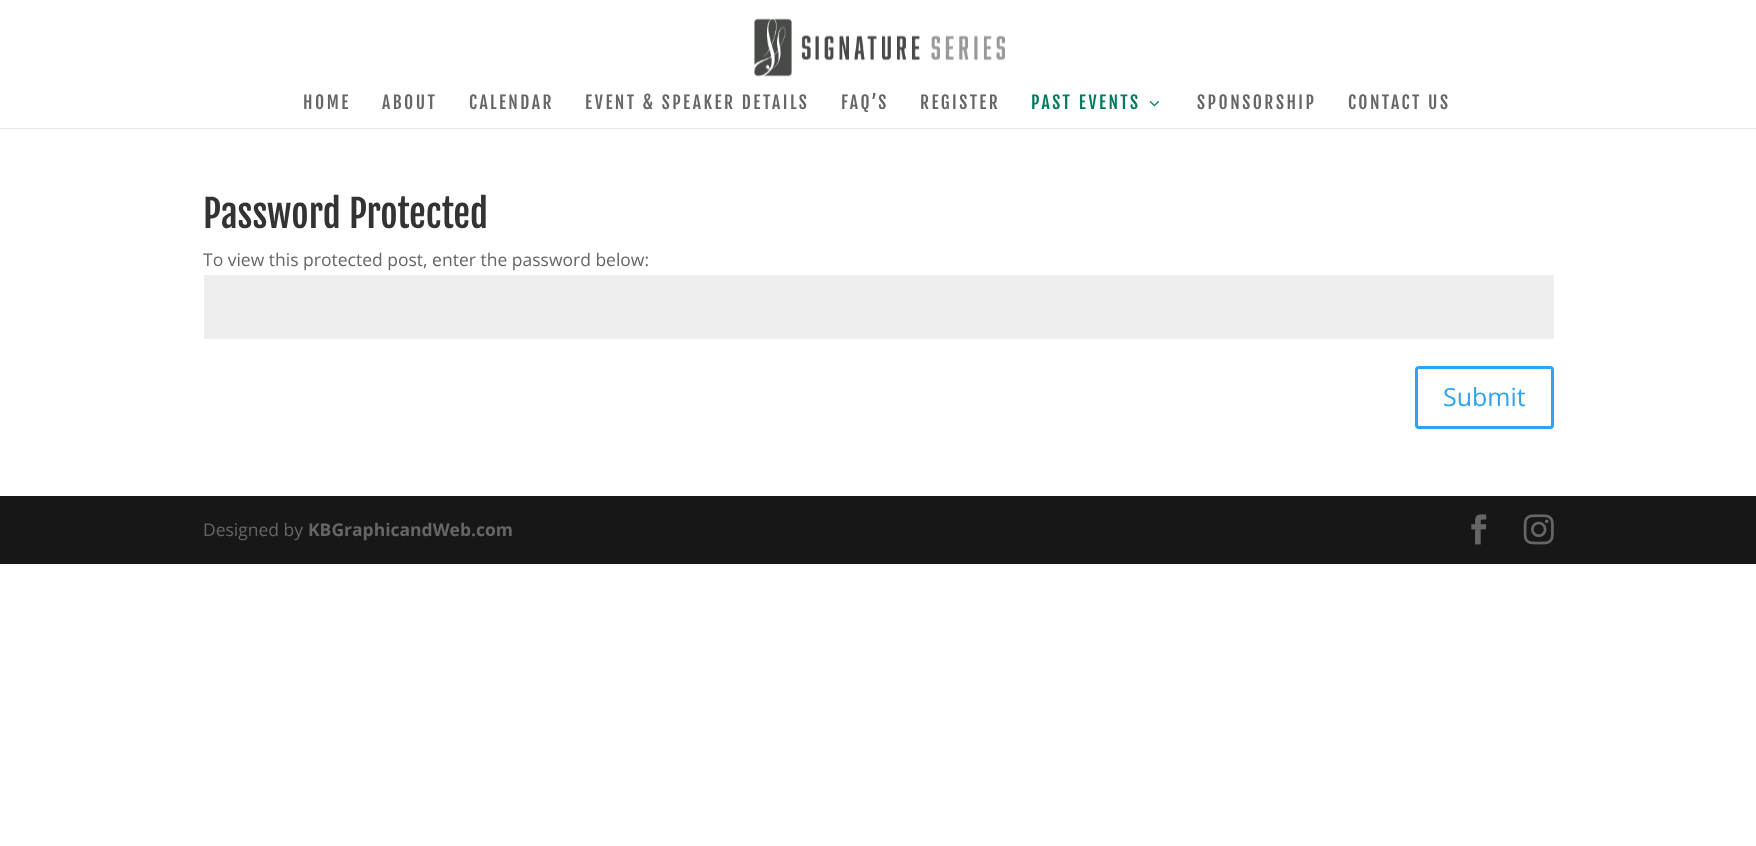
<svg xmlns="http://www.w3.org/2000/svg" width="1756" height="846">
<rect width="100%" height="100%" fill="#fff"/>
<rect y="128" width="1756" height="1" fill="#e6e6e6"/>
<image x="754" y="18" width="251" height="59" href="media/1.png"/>
<text x="303" y="109" style="font-family:Fjalla One;font-size:17.5px;letter-spacing:2.5px;fill:#666">HOME</text>
<text x="382" y="109" style="font-family:Fjalla One;font-size:17.5px;letter-spacing:2.5px;fill:#666">ABOUT</text>
<text x="469" y="109" style="font-family:Fjalla One;font-size:17.5px;letter-spacing:2.5px;fill:#666">CALENDAR</text>
<text x="585" y="109" style="font-family:Fjalla One;font-size:17.5px;letter-spacing:2.5px;fill:#666">EVENT &amp; SPEAKER DETAILS</text>
<text x="841" y="109" style="font-family:Fjalla One;font-size:17.5px;letter-spacing:2.5px;fill:#666">FAQ’S</text>
<text x="920" y="109" style="font-family:Fjalla One;font-size:17.5px;letter-spacing:2.5px;fill:#666">REGISTER</text>
<text x="1031" y="109" style="font-family:Fjalla One;font-size:17.5px;letter-spacing:2.5px;fill:#007960">PAST EVENTS</text>
<image x="1149" y="101" width="10" height="6" href="media/2.png"/>
<text x="1197" y="109" style="font-family:Fjalla One;font-size:17.5px;letter-spacing:2.5px;fill:#666">SPONSORSHIP</text>
<text x="1348" y="109" style="font-family:Fjalla One;font-size:17.5px;letter-spacing:2.5px;fill:#666">CONTACT US</text>
<text x="203" y="228" style="font-family:Fjalla One;font-size:37.5px;fill:#333">Password Protected</text>
<text x="203" y="266" style="font-family:Open Sans;font-size:17.5px;fill:#666">To view this protected post, enter the password below:</text>
<rect x="204" y="275" width="1350" height="64" fill="#eee"/>
<rect x="1416.5" y="367.5" width="136" height="60" rx="2.5" fill="none" stroke="#2ea3f2" stroke-width="3"/>
<text x="1443" y="406" style="font-family:Open Sans;font-size:25px;fill:#2ea3f2">Submit</text>
<rect y="496" width="1756" height="68" fill="#171717"/>
<text x="203" y="536" style="font-family:Open Sans;font-size:17.5px;fill:#666">Designed by</text>
<text x="308" y="536" style="font-family:Open Sans;font-size:17.5px;font-weight:bold;fill:#666">KBGraphicandWeb.com</text>
<image x="1471" y="514" width="16" height="31" href="media/3.png"/>
<image x="1523" y="514" width="31" height="31" href="media/4.png"/>
</svg>
